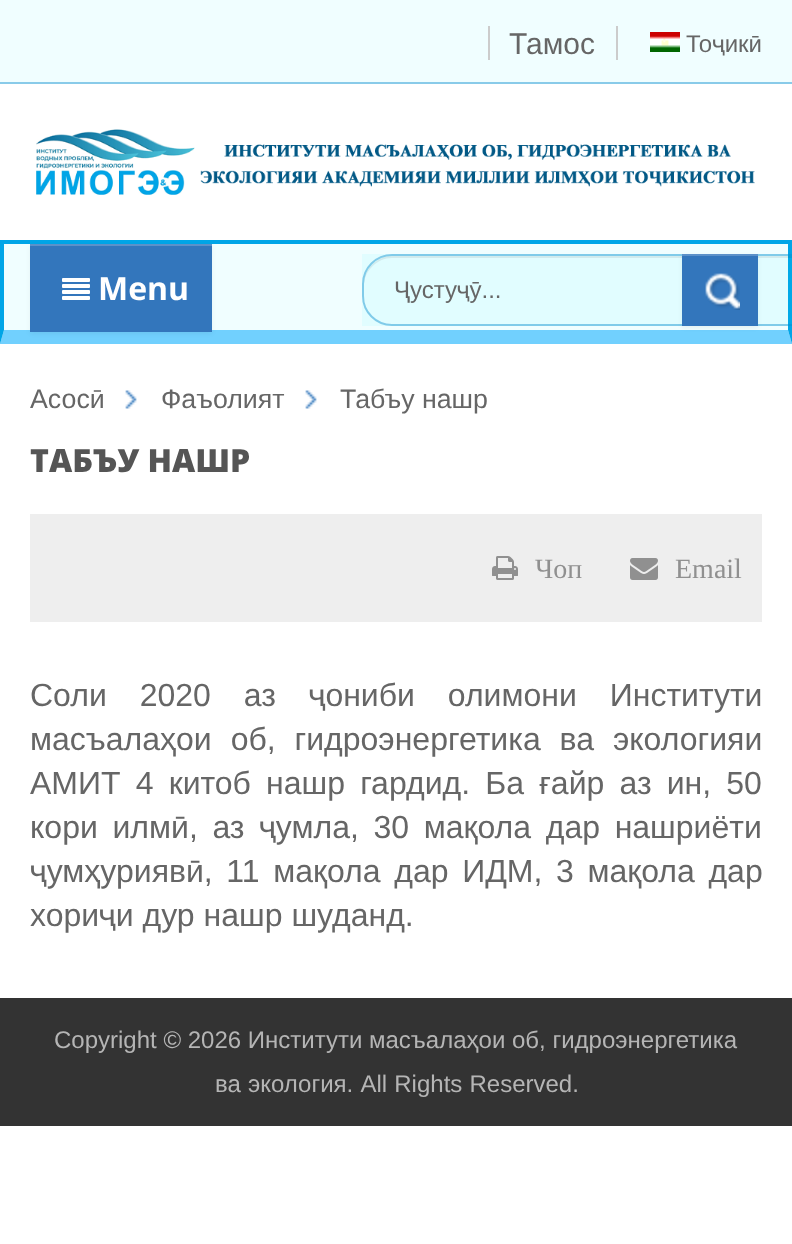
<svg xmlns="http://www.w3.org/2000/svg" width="792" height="1244">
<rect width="100%" height="100%" fill="#fff"/>
<rect width="792" height="82" fill="#f0feff"/>
<rect y="82" width="792" height="2" fill="#89cbe9"/>
<text x="509" y="54" style="font-family:Liberation Sans;font-size:30px;fill:#666">Тамос</text>
<rect x="616" y="26" width="2" height="34" fill="#ccc"/>
<rect x="488" y="26" width="2" height="34" fill="#ccc"/>
<image x="650" y="32" width="30" height="20" href="media/1.png"/>
<text x="686" y="52" style="font-family:Liberation Sans;font-size:24px;fill:#666">Тоҷикӣ</text>
<image x="36" y="129" width="719" height="66" href="media/2.png"/>
<rect y="244" width="792" height="100" fill="#f0feff"/>
<rect y="240" width="792" height="4" fill="#00a5e7"/>
<path d="M792 240v104l-4-14v-86z" fill="#00a5e7"/>
<path d="M792 344h-792l4-14h784z" fill="#00a7fd87"/>
<path d="M0 344v-104l4 4v86z" fill="#00a5e7"/>
<rect x="30" y="246" width="182" height="88" fill="#0000000d" filter="blur(2px)"/>
<rect x="30" y="246" width="182" height="86" fill="#3376bc"/>
<rect x="30" y="244" width="182" height="2" fill="#5c91c9"/>
<image x="62" y="278" width="28" height="22" href="media/3.png"/>
<text x="98" y="300" style="font-family:Open Sans;font-size:32px;font-weight:bold;fill:#fff">Menu</text>
<rect x="362" y="254" width="430" height="72" fill="#00e7ff0f"/>
<path d="M392 258h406c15 0 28 13 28 28v-2c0-15-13-28-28-28h-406c-15 0-28 13-28 28v2c0-15 13-28 28-28z" fill="#00000012"/>
<rect x="363" y="255" width="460" height="70" rx="29" fill="none" stroke="#0088cc6e" stroke-width="2"/>
<text x="394" y="298" style="font-family:Liberation Sans;font-size:24px;fill:#666">Ҷустуҷӯ...</text>
<rect x="682" y="256" width="76" height="72" fill="#0000000d" filter="blur(2px)"/>
<rect x="682" y="256" width="76" height="70" fill="#3376bc"/>
<rect x="682" y="254" width="76" height="2" fill="#5c91c9"/>
<image x="705" y="273" width="35" height="37" href="media/4.png"/>
<text x="30" y="408" style="font-family:Liberation Sans;font-size:26.75px;fill:#666">Асосӣ</text>
<image x="125" y="390" width="12" height="19" href="media/5.png"/>
<text x="161" y="408" style="font-family:Liberation Sans;font-size:26.75px;fill:#666">Фаъолият</text>
<image x="305" y="390" width="12" height="19" href="media/5.png"/>
<text x="340" y="408" style="font-family:Liberation Sans;font-size:26.75px;fill:#666">Табъу нашр</text>
<text x="30" y="472" style="font-family:Open Sans;font-size:32px;font-weight:800;fill:#555">ТАБЪУ НАШР</text>
<rect x="30" y="514" width="732" height="108" fill="#eee"/>
<image x="492" y="556" width="26" height="24" href="media/6.png"/>
<text x="535" y="578" style="font-family:Liberation Serif;font-size:28px;fill:#909090">Чоп</text>
<image x="630" y="558" width="28" height="22" href="media/7.png"/>
<text x="675" y="578" style="font-family:Liberation Serif;font-size:28px;fill:#909090">Email</text>
<text x="30" y="706" word-spacing="24" style="font-family:Liberation Sans;font-size:32px;fill:#666">Соли 2020 аз ҷониби олимони Институти</text>
<text x="30" y="750" word-spacing="10" style="font-family:Liberation Sans;font-size:32px;fill:#666">масъалаҳои об, гидроэнергетика ва экологияи</text>
<text x="30" y="794" word-spacing="6.25" style="font-family:Liberation Sans;font-size:32px;fill:#666">АМИТ 4 китоб нашр гардид. Ба ғайр аз ин, 50</text>
<text x="30" y="838" word-spacing="5.75" style="font-family:Liberation Sans;font-size:32px;fill:#666">кори илмӣ, аз ҷумла, 30 мақола дар нашриёти</text>
<text x="30" y="882" word-spacing="4.75" style="font-family:Liberation Sans;font-size:32px;fill:#666">ҷумҳуриявӣ, 11 мақола дар ИДМ, 3 мақола дар</text>
<text x="30" y="926" style="font-family:Liberation Sans;font-size:32px;fill:#666">хориҷи дур нашр шуданд.</text>
<rect y="998" width="792" height="128" fill="#333"/>
<text x="54" y="1048" style="font-family:Liberation Sans;font-size:24px;fill:#b5b5b5">Copyright © 2026 Институти масъалаҳои об, гидроэнергетика</text>
<text x="215" y="1092" word-spacing="0.5" style="font-family:Liberation Sans;font-size:24px;fill:#b5b5b5">ва экология. All Rights Reserved.</text>
</svg>
